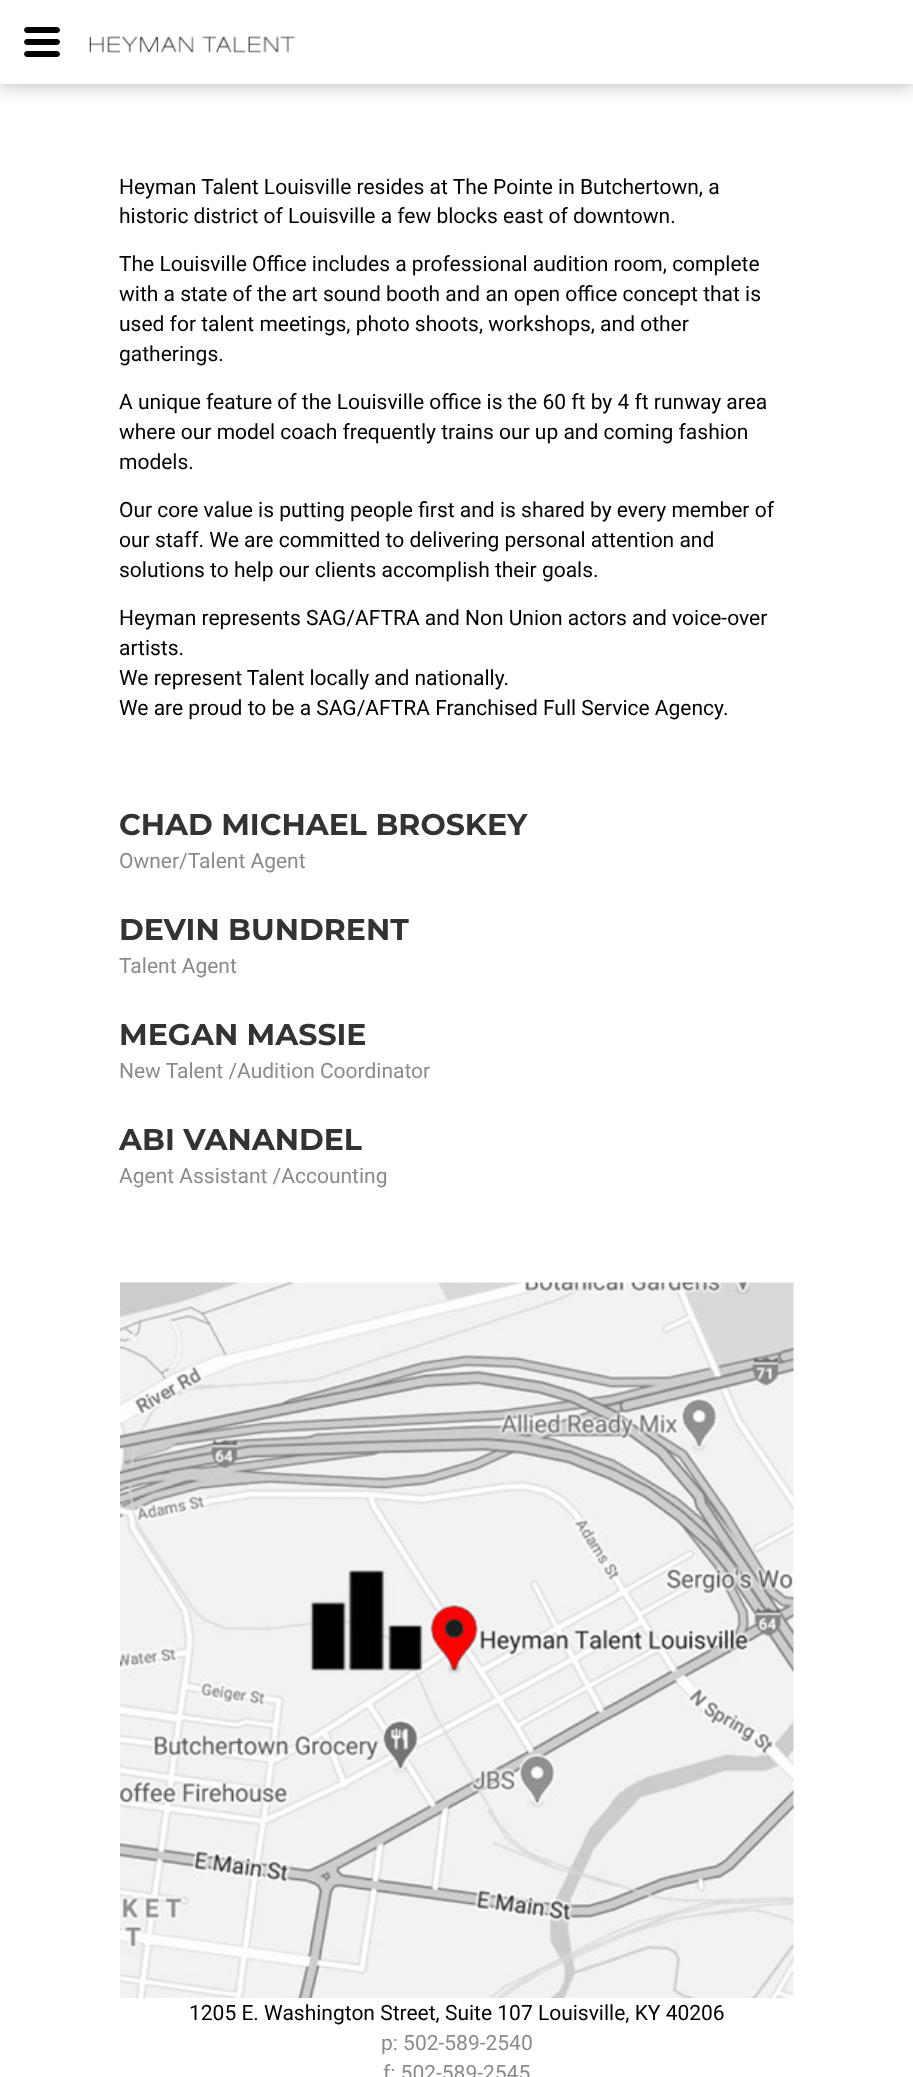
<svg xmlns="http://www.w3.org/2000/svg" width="913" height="2077">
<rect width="100%" height="100%" fill="#fff"/>
<rect x="-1" y="-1" width="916" height="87" fill="#00000040" filter="blur(9px)"/>
<rect width="913" height="84" fill="#fff"/>
<path d="M57 45h-30c-1.5 0-3-1.5-3-3c0-1.5 1.5-3 3-3h30c1.5 0 3 1.5 3 3c0 1.5-1.5 3-3 3zm0 12h-30c-1.5 0-3-1.5-3-3c0-1.5 1.5-3 3-3h30c1.5 0 3 1.5 3 3c0 1.5-1.5 3-3 3zm0-24h-30c-1.5 0-3-1.5-3-3c0-1.5 1.5-3 3-3h30c1.5 0 3 1.5 3 3c0 1.5-1.5 3-3 3z" fill="#000"/>
<image x="89" y="36" width="207" height="17" href="media/1.png"/>
<text x="119" y="194" style="font-family:Roboto;font-size:21px;fill:#000">Heyman Talent Louisville resides at The Pointe in Butchertown, a</text>
<text x="119" y="223" style="font-family:Roboto;font-size:21px;fill:#000">historic district of Louisville a few blocks east of downtown.</text>
<text x="119" y="271" style="font-family:Roboto;font-size:21px;fill:#000">The Louisville Office includes a professional audition room, complete</text>
<text x="119" y="301" style="font-family:Roboto;font-size:21px;fill:#000">with a state of the art sound booth and an open office concept that is</text>
<text x="119" y="331" style="font-family:Roboto;font-size:21px;fill:#000">used for talent meetings, photo shoots, workshops, and other</text>
<text x="119" y="361" style="font-family:Roboto;font-size:21px;fill:#000">gatherings.</text>
<text x="119" y="409" style="font-family:Roboto;font-size:21px;fill:#000">A unique feature of the Louisville office is the 60 ft by 4 ft runway area</text>
<text x="119" y="439" style="font-family:Roboto;font-size:21px;fill:#000">where our model coach frequently trains our up and coming fashion</text>
<text x="119" y="469" style="font-family:Roboto;font-size:21px;fill:#000">models.</text>
<text x="119" y="517" style="font-family:Roboto;font-size:21px;fill:#000">Our core value is putting people first and is shared by every member of</text>
<text x="119" y="547" style="font-family:Roboto;font-size:21px;fill:#000">our staff. We are committed to delivering personal attention and</text>
<text x="119" y="577" style="font-family:Roboto;font-size:21px;fill:#000">solutions to help our clients accomplish their goals.</text>
<text x="119" y="625" style="font-family:Roboto;font-size:21px;fill:#000">Heyman represents SAG/AFTRA and Non Union actors and voice-over</text>
<text x="119" y="655" style="font-family:Roboto;font-size:21px;fill:#000">artists.</text>
<text x="119" y="685" style="font-family:Roboto;font-size:21px;fill:#000">We represent Talent locally and nationally.</text>
<text x="119" y="715" style="font-family:Roboto;font-size:21px;fill:#000">We are proud to be a SAG/AFTRA Franchised Full Service Agency.</text>
<text x="119" y="835" style="font-family:Montserrat;font-size:30px;font-weight:bold;fill:#333">CHAD MICHAEL BROSKEY</text>
<text x="119" y="868" style="font-family:Roboto;font-size:21px;fill:#8b8b8b">Owner/Talent Agent</text>
<text x="119" y="940" style="font-family:Montserrat;font-size:30px;font-weight:bold;fill:#333">DEVIN BUNDRENT</text>
<text x="119" y="973" style="font-family:Roboto;font-size:21px;fill:#8b8b8b">Talent Agent</text>
<text x="119" y="1045" style="font-family:Montserrat;font-size:30px;font-weight:bold;fill:#333">MEGAN MASSIE</text>
<text x="119" y="1078" style="font-family:Roboto;font-size:21px;fill:#8b8b8b">New Talent /Audition Coordinator</text>
<text x="119" y="1150" style="font-family:Montserrat;font-size:30px;font-weight:bold;fill:#333">ABI VANANDEL</text>
<text x="119" y="1183" style="font-family:Roboto;font-size:21px;fill:#8b8b8b">Agent Assistant /Accounting</text>
<image x="120" y="1282" width="674" height="716" href="media/2.png"/>
<text x="189" y="2020" style="font-family:Roboto;font-size:21px;fill:#000">1205 E. Washington Street, Suite 107 Louisville, KY 40206</text>
<text x="381" y="2050" style="font-family:Roboto;font-size:21px;fill:#8b8b8b">p: 502-589-2540</text>
<text x="383" y="2080" style="font-family:Roboto;font-size:21px;fill:#8b8b8b">f: 502-589-2545</text>
</svg>
